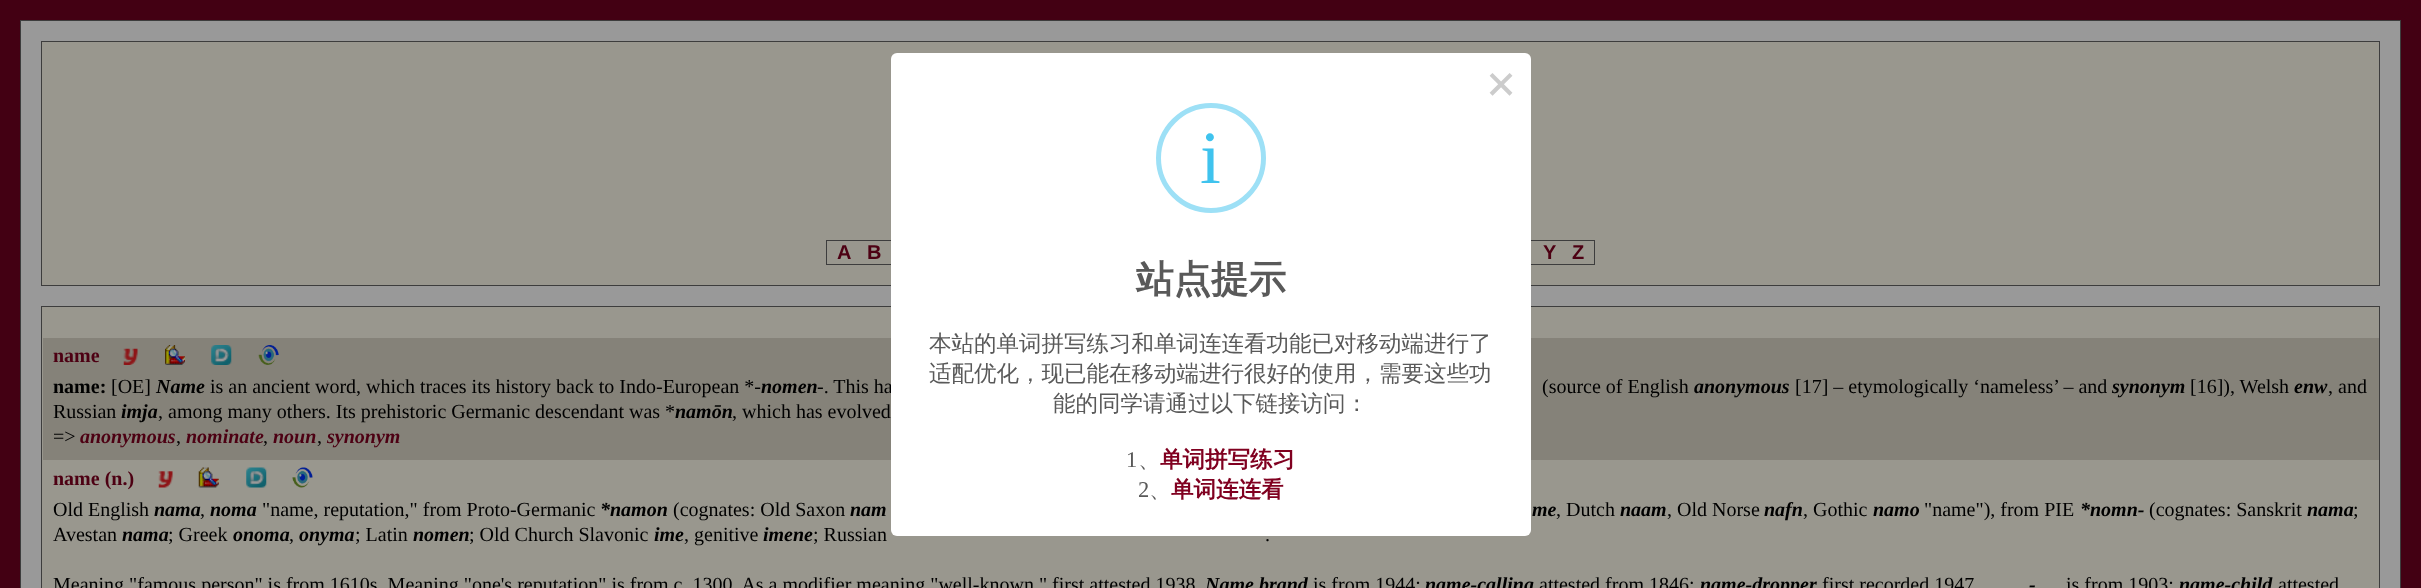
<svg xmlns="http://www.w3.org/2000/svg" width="2421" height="588">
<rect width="100%" height="100%" fill="#430013"/>
<rect x="20.5" y="20.5" width="2380" height="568" fill="#999" stroke="#3d3d3d"/>
<rect x="41.5" y="41.5" width="2338" height="244" fill="#99978e" stroke="#3d3d3d"/>
<rect x="826.5" y="240.5" width="768" height="24" fill="none" stroke="#3d3d3d"/>
<rect x="41.5" y="306.5" width="2338" height="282" fill="#99978e" stroke="#3d3d3d"/>
<rect x="43" y="338" width="2336" height="122" fill="#858279"/>
<text x="817" y="393" style="font-family:Liberation Serif;font-size:20px;fill:#000">-. This ha</text>
<text x="732" y="418" style="font-family:Liberation Serif;font-size:20px;fill:#000">, which has evolved</text>
<rect x="891" y="53" width="640" height="483" rx="6" fill="#fff"/>
<text x="1486" y="100" style="font-family:DejaVu Sans Mono;font-size:50px;fill:#ccc">×</text>
<circle cx="1211" cy="158" r="52.5" fill="none" stroke="#9de0f6" stroke-width="5"/>
<text x="1200" y="183" style="font-family:Liberation Serif;font-size:75px;fill:#3fc3ee">i</text>
<text x="1136" y="292" style="font-family:WenQuanYi Zen Hei;font-size:37.5px;font-weight:bold;fill:#595959">站点提示</text>
<text x="929" y="351" style="font-family:WenQuanYi Zen Hei;font-size:22.5px;font-weight:500;fill:#595959">本站的单词拼写练习和单词连连看功能已对移动端进行了</text>
<text x="929" y="381" style="font-family:WenQuanYi Zen Hei;font-size:22.5px;font-weight:500;fill:#595959">适配优化，现已能在移动端进行很好的使用，需要这些功</text>
<text x="1053" y="411" style="font-family:WenQuanYi Zen Hei;font-size:22.5px;font-weight:500;fill:#595959">能的同学请通过以下链接访问：</text>
<text x="1126" y="467" style="font-family:Liberation Serif;font-size:22.5px;fill:#595959">1</text>
<text x="1160" y="467" style="font-family:WenQuanYi Zen Hei;font-size:22.5px;font-weight:bold;fill:#800020">单词拼写练习</text>
<text x="1138" y="467" style="font-family:WenQuanYi Zen Hei;font-size:22.5px;font-weight:500;fill:#595959">、</text>
<text x="1138" y="497" style="font-family:Liberation Serif;font-size:22.5px;fill:#595959">2</text>
<text x="1171" y="497" style="font-family:WenQuanYi Zen Hei;font-size:22.5px;font-weight:bold;fill:#800020">单词连连看</text>
<text x="1149" y="497" style="font-family:WenQuanYi Zen Hei;font-size:22.5px;font-weight:500;fill:#595959">、</text>
<text x="837" y="259" style="font-family:Liberation Sans;font-size:20px;font-weight:bold;fill:#4d0013">A</text>
<text x="867" y="259" style="font-family:Liberation Sans;font-size:20px;font-weight:bold;fill:#4d0013">B</text>
<text x="1543" y="259" style="font-family:Liberation Sans;font-size:20px;font-weight:bold;fill:#4d0013">Y</text>
<text x="1572" y="259" style="font-family:Liberation Sans;font-size:20px;font-weight:bold;fill:#4d0013">Z</text>
<text x="53" y="362" style="font-family:Liberation Serif;font-size:20px;font-weight:bold;fill:#4d0013">name</text>
<image x="123" y="348" width="15" height="17" href="media/1.png"/>
<image x="165" y="345" width="20" height="20" href="media/2.png"/>
<image x="211" y="345" width="21" height="20" href="media/3.png"/>
<image x="258" y="345" width="21" height="20" href="media/4.png"/>
<text x="53" y="393" style="font-family:Liberation Serif;font-size:20px;font-weight:bold;fill:#000">name:</text>
<text x="111" y="393" style="font-family:Liberation Serif;font-size:20px;fill:#000">[OE]</text>
<text x="156" y="393" style="font-family:Liberation Serif;font-size:20px;font-weight:bold;font-style:italic;fill:#000">Name</text>
<text x="210" y="393" style="font-family:Liberation Serif;font-size:20px;fill:#000">is an ancient word, which traces its history back to Indo-European *-</text>
<text x="761" y="393" style="font-family:Liberation Serif;font-size:20px;font-weight:bold;font-style:italic;fill:#000">nomen</text>
<text x="1542" y="393" style="font-family:Liberation Serif;font-size:20px;fill:#000">(source of English</text>
<text x="1694" y="393" style="font-family:Liberation Serif;font-size:20px;font-weight:bold;font-style:italic;fill:#000">anonymous</text>
<text x="1795" y="393" style="font-family:Liberation Serif;font-size:20px;fill:#000">[17] – etymologically ‘nameless’ – and</text>
<text x="2112" y="393" style="font-family:Liberation Serif;font-size:20px;font-weight:bold;font-style:italic;fill:#000">synonym</text>
<text x="2190" y="393" style="font-family:Liberation Serif;font-size:20px;fill:#000">[16]), Welsh</text>
<text x="2294" y="393" style="font-family:Liberation Serif;font-size:20px;font-weight:bold;font-style:italic;fill:#000">enw</text>
<text x="2328" y="393" style="font-family:Liberation Serif;font-size:20px;fill:#000">, and</text>
<text x="53" y="418" style="font-family:Liberation Serif;font-size:20px;fill:#000">Russian</text>
<text x="121" y="418" style="font-family:Liberation Serif;font-size:20px;font-weight:bold;font-style:italic;fill:#000">imja</text>
<text x="158" y="418" style="font-family:Liberation Serif;font-size:20px;fill:#000">, among many others. Its prehistoric Germanic descendant was *</text>
<text x="675" y="418" style="font-family:Liberation Serif;font-size:20px;font-weight:bold;font-style:italic;fill:#000">namōn</text>
<text x="53" y="443" style="font-family:Liberation Serif;font-size:20px;fill:#000">=&gt;</text>
<text x="80" y="443" style="font-family:Liberation Serif;font-size:20px;font-weight:bold;font-style:italic;fill:#4d0013">anonymous</text>
<text x="176" y="443" style="font-family:Liberation Serif;font-size:20px;fill:#000">,</text>
<text x="186" y="443" style="font-family:Liberation Serif;font-size:20px;font-weight:bold;font-style:italic;fill:#4d0013">nominate</text>
<text x="263" y="443" style="font-family:Liberation Serif;font-size:20px;fill:#000">,</text>
<text x="273" y="443" style="font-family:Liberation Serif;font-size:20px;font-weight:bold;font-style:italic;fill:#4d0013">noun</text>
<text x="317" y="443" style="font-family:Liberation Serif;font-size:20px;fill:#000">,</text>
<text x="327" y="443" style="font-family:Liberation Serif;font-size:20px;font-weight:bold;font-style:italic;fill:#4d0013">synonym</text>
<text x="53" y="485" style="font-family:Liberation Serif;font-size:20px;font-weight:bold;fill:#4d0013">name (n.)</text>
<image x="158" y="471" width="15" height="17" href="media/5.png"/>
<image x="198" y="467" width="21" height="21" href="media/6.png"/>
<image x="246" y="467" width="21" height="21" href="media/7.png"/>
<image x="292" y="467" width="21" height="21" href="media/8.png"/>
<text x="53" y="516" style="font-family:Liberation Serif;font-size:20px;fill:#000">Old English</text>
<text x="154" y="516" style="font-family:Liberation Serif;font-size:20px;font-weight:bold;font-style:italic;fill:#000">nama</text>
<text x="200" y="516" style="font-family:Liberation Serif;font-size:20px;fill:#000">,</text>
<text x="210" y="516" style="font-family:Liberation Serif;font-size:20px;font-weight:bold;font-style:italic;fill:#000">noma</text>
<text x="262" y="516" style="font-family:Liberation Serif;font-size:20px;fill:#000">"name, reputation," from Proto-Germanic</text>
<text x="600" y="516" style="font-family:Liberation Serif;font-size:20px;font-weight:bold;font-style:italic;fill:#000">*namon</text>
<text x="673" y="516" style="font-family:Liberation Serif;font-size:20px;fill:#000">(cognates: Old Saxon</text>
<text x="850" y="516" style="font-family:Liberation Serif;font-size:20px;font-weight:bold;font-style:italic;fill:#000">nam</text>
<text x="1532" y="516" style="font-family:Liberation Serif;font-size:20px;font-weight:bold;font-style:italic;fill:#000">me</text>
<text x="1556" y="516" style="font-family:Liberation Serif;font-size:20px;fill:#000">, Dutch</text>
<text x="1620" y="516" style="font-family:Liberation Serif;font-size:20px;font-weight:bold;font-style:italic;fill:#000">naam</text>
<text x="1667" y="516" style="font-family:Liberation Serif;font-size:20px;fill:#000">, Old Norse</text>
<text x="1764" y="516" style="font-family:Liberation Serif;font-size:20px;font-weight:bold;font-style:italic;fill:#000">nafn</text>
<text x="1803" y="516" style="font-family:Liberation Serif;font-size:20px;fill:#000">, Gothic</text>
<text x="1873" y="516" style="font-family:Liberation Serif;font-size:20px;font-weight:bold;font-style:italic;fill:#000">namo</text>
<text x="1924" y="516" style="font-family:Liberation Serif;font-size:20px;fill:#000">"name"), from PIE</text>
<text x="2080" y="516" style="font-family:Liberation Serif;font-size:20px;font-weight:bold;font-style:italic;fill:#000">*nomn-</text>
<text x="2149" y="516" style="font-family:Liberation Serif;font-size:20px;fill:#000">(cognates: Sanskrit</text>
<text x="2307" y="516" style="font-family:Liberation Serif;font-size:20px;font-weight:bold;font-style:italic;fill:#000">nama</text>
<text x="2353" y="516" style="font-family:Liberation Serif;font-size:20px;fill:#000">;</text>
<text x="53" y="541" style="font-family:Liberation Serif;font-size:20px;fill:#000">Avestan</text>
<text x="122" y="541" style="font-family:Liberation Serif;font-size:20px;font-weight:bold;font-style:italic;fill:#000">nama</text>
<text x="168" y="541" style="font-family:Liberation Serif;font-size:20px;fill:#000">; Greek</text>
<text x="233" y="541" style="font-family:Liberation Serif;font-size:20px;font-weight:bold;font-style:italic;fill:#000">onoma</text>
<text x="289" y="541" style="font-family:Liberation Serif;font-size:20px;fill:#000">,</text>
<text x="299" y="541" style="font-family:Liberation Serif;font-size:20px;font-weight:bold;font-style:italic;fill:#000">onyma</text>
<text x="355" y="541" style="font-family:Liberation Serif;font-size:20px;fill:#000">; Latin</text>
<text x="413" y="541" style="font-family:Liberation Serif;font-size:20px;font-weight:bold;font-style:italic;fill:#000">nomen</text>
<text x="469" y="541" style="font-family:Liberation Serif;font-size:20px;fill:#000">; Old Church Slavonic</text>
<text x="654" y="541" style="font-family:Liberation Serif;font-size:20px;font-weight:bold;font-style:italic;fill:#000">ime</text>
<text x="684" y="541" style="font-family:Liberation Serif;font-size:20px;fill:#000">, genitive</text>
<text x="763" y="541" style="font-family:Liberation Serif;font-size:20px;font-weight:bold;font-style:italic;fill:#000">imene</text>
<text x="813" y="541" style="font-family:Liberation Serif;font-size:20px;fill:#000">; Russian</text>
<text x="1265" y="541" style="font-family:Liberation Serif;font-size:20px;fill:#000">.</text>
<text x="53" y="591" style="font-family:Liberation Serif;font-size:20px;fill:#000">Meaning "famous person" is from 1610s. Meaning "one's reputation" is from c. 1300. As a modifier meaning "well-known," first attested 1938</text>
<text x="1205" y="591" style="font-family:Liberation Serif;font-size:20px;font-weight:bold;font-style:italic;fill:#000">Name brand</text>
<text x="1313" y="591" style="font-family:Liberation Serif;font-size:20px;fill:#000">is from 1944;</text>
<text x="1425" y="591" style="font-family:Liberation Serif;font-size:20px;font-weight:bold;font-style:italic;fill:#000">name-calling</text>
<text x="1539" y="591" style="font-family:Liberation Serif;font-size:20px;fill:#000">attested from 1846;</text>
<text x="1700" y="591" style="font-family:Liberation Serif;font-size:20px;font-weight:bold;font-style:italic;fill:#000">name-dropper</text>
<text x="1822" y="591" style="font-family:Liberation Serif;font-size:20px;fill:#000">first recorded 1947</text>
<text x="2029" y="591" style="font-family:Liberation Serif;font-size:20px;font-weight:bold;font-style:italic;fill:#000">-</text>
<text x="2066" y="591" style="font-family:Liberation Serif;font-size:20px;fill:#000">is from 1903;</text>
<text x="2179" y="591" style="font-family:Liberation Serif;font-size:20px;font-weight:bold;font-style:italic;fill:#000">name-child</text>
<text x="2278" y="591" style="font-family:Liberation Serif;font-size:20px;fill:#000">attested</text>
</svg>
